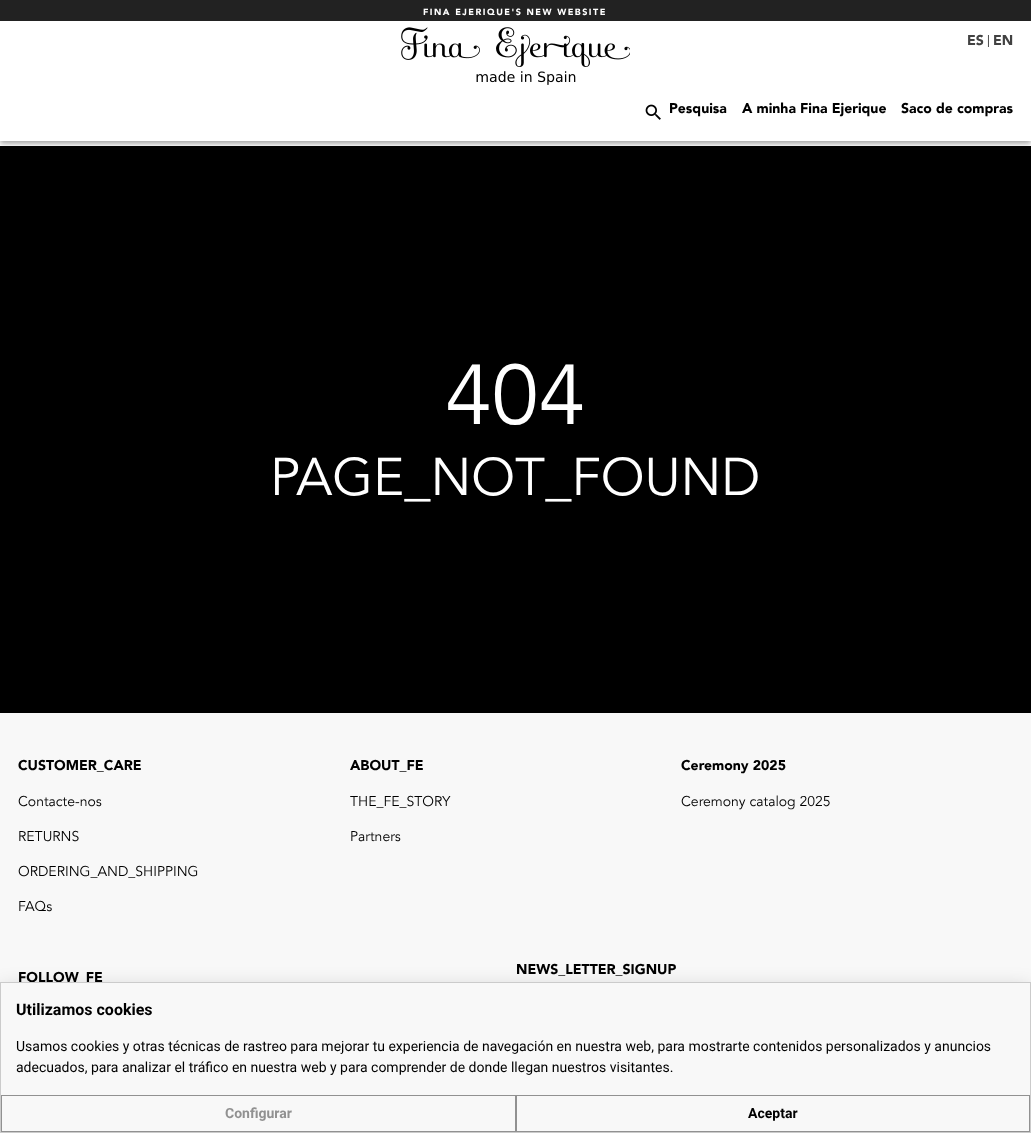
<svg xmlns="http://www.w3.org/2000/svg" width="1031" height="1133">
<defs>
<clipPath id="clip1"><rect x="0" y="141" width="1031" height="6"/></clipPath>
<clipPath id="clip2"><rect x="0" y="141" width="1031" height="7"/></clipPath>
<clipPath id="clip3"><rect x="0" y="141" width="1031" height="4"/></clipPath>
</defs>
<rect width="100%" height="100%" fill="#fff"/>
<rect y="146" width="1031" height="567" fill="#000"/>
<g clip-path="url(#clip1)">
<rect y="1" width="1031" height="141" fill="#0000001f" filter="blur(5px)"/>
</g>
<g clip-path="url(#clip2)">
<rect y="4" width="1031" height="141" fill="#00000024" filter="blur(2.5px)"/>
</g>
<g clip-path="url(#clip3)">
<rect x="1" y="3" width="1029" height="139" fill="#00000033" filter="blur(2px)"/>
</g>
<rect width="1031" height="21" fill="#222"/>
<text x="423" y="15" style="font-family:Avenir;font-size:9px;font-weight:900;letter-spacing:1.5px;fill:#fff">FINA EJERIQUE'S NEW WEBSITE</text>
<image x="401" y="27" width="229" height="58" href="media/1.png"/>
<text x="967" y="45" style="font-family:Avenir;font-size:14px;font-weight:900;fill:#424242">ES</text>
<text x="987" y="44" style="font-family:Avenir;font-size:12px;fill:#000">|</text>
<text x="993" y="45" style="font-family:Avenir;font-size:14px;font-weight:900;fill:#424242">EN</text>
<image x="645" y="104" width="16" height="16" href="media/2.png"/>
<text x="669" y="113" style="font-family:Avenir;font-size:14px;font-weight:900;fill:#000">Pesquisa</text>
<text x="742" y="113" style="font-family:Avenir;font-size:14px;font-weight:900;fill:#000">A minha Fina Ejerique</text>
<text x="901" y="113" style="font-family:Avenir;font-size:14px;font-weight:900;fill:#000">Saco de compras</text>
<text x="445" y="424" style="font-family:Avenir;font-size:84px;fill:#fff">404</text>
<text x="270" y="495" style="font-family:Avenir;font-size:52.5px;fill:#fff">PAGE_NOT_FOUND</text>
<rect y="713" width="1031" height="269" fill="#f8f8f8"/>
<text x="18" y="770" style="font-family:Avenir;font-size:14px;font-weight:900;fill:#000">CUSTOMER_CARE</text>
<text x="18" y="806" style="font-family:Avenir;font-size:14px;fill:#000">Contacte-nos</text>
<text x="18" y="841" style="font-family:Avenir;font-size:14px;fill:#000">RETURNS</text>
<text x="18" y="876" style="font-family:Avenir;font-size:14px;fill:#000">ORDERING_AND_SHIPPING</text>
<text x="18" y="911" style="font-family:Avenir;font-size:14px;fill:#000">FAQs</text>
<text x="350" y="770" style="font-family:Avenir;font-size:14px;font-weight:900;fill:#000">ABOUT_FE</text>
<text x="350" y="806" style="font-family:Avenir;font-size:14px;fill:#000">THE_FE_STORY</text>
<text x="350" y="841" style="font-family:Avenir;font-size:14px;fill:#000">Partners</text>
<text x="681" y="770" style="font-family:Avenir;font-size:14px;font-weight:900;fill:#000">Ceremony 2025</text>
<text x="681" y="806" style="font-family:Avenir;font-size:14px;fill:#000">Ceremony catalog 2025</text>
<text x="516" y="974" style="font-family:Avenir;font-size:14px;font-weight:900;fill:#000">NEWS_LETTER_SIGNUP</text>
<text x="18" y="982" style="font-family:Avenir;font-size:14px;font-weight:900;fill:#000">FOLLOW_FE</text>
<rect y="988" width="1031" height="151" fill="#00000030" filter="blur(10px)"/>
<rect x="1" y="983" width="1029" height="148" fill="#f8f8f8"/>
<rect x="0.5" y="982.5" width="1030" height="150" fill="none" stroke="#cbcbcb"/>
<text x="16" y="1015" style="font-family:Roboto;font-size:16px;font-weight:bold;fill:#000">Utilizamos cookies</text>
<text x="16" y="1051" style="font-family:Roboto;font-size:14px;fill:#000">Usamos cookies y otras técnicas de rastreo para mejorar tu experiencia de navegación en nuestra web, para mostrarte contenidos personalizados y anuncios</text>
<text x="16" y="1072" style="font-family:Roboto;font-size:14px;fill:#000">adecuados, para analizar el tráfico en nuestra web y para comprender de donde llegan nuestros visitantes.</text>
<rect x="1.5" y="1095.5" width="514" height="36" fill="none" stroke="#919191"/>
<text x="225" y="1118" style="font-family:Roboto;font-size:14px;font-weight:bold;fill:#919191">Configurar</text>
<rect x="516.5" y="1095.5" width="513" height="36" fill="none" stroke="#919191"/>
<text x="748" y="1118" style="font-family:Roboto;font-size:14px;font-weight:bold;fill:#000">Aceptar</text>
</svg>
